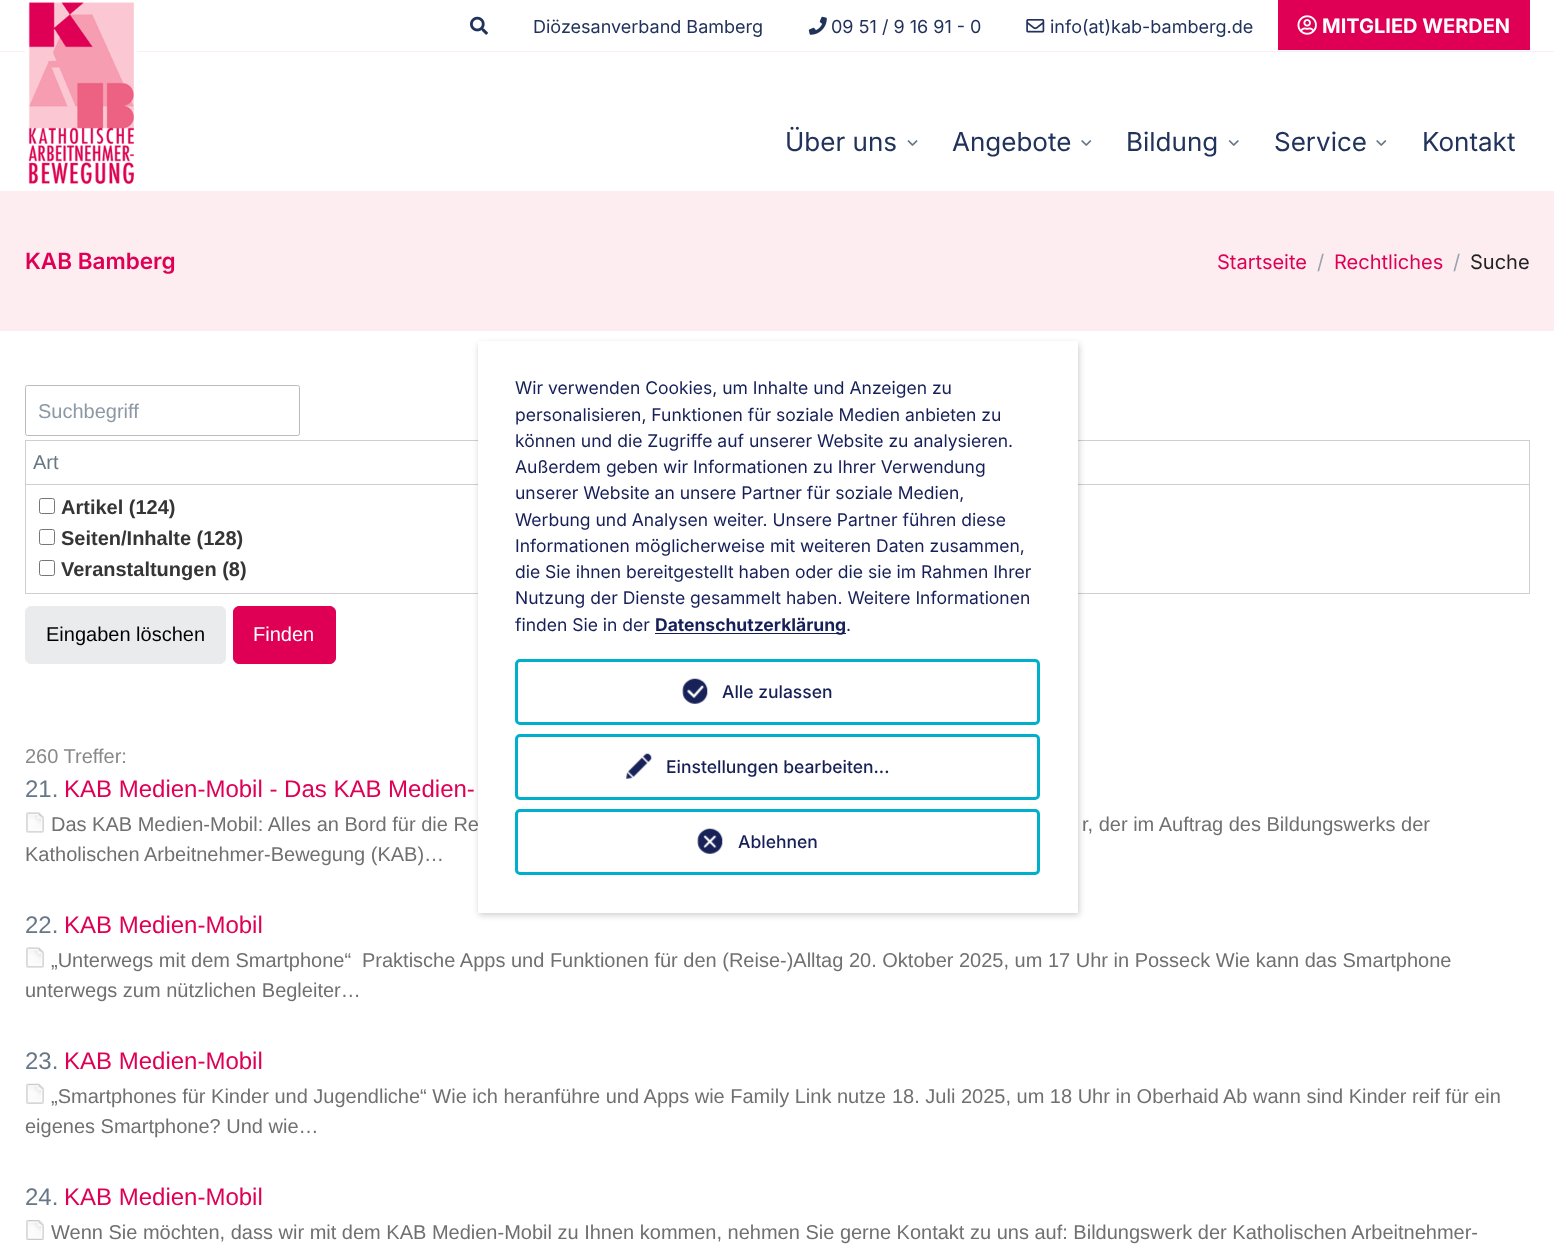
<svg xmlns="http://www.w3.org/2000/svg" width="1554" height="1252">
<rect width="100%" height="100%" fill="#fff"/>
<rect y="51" width="1554" height="1" fill="#fdedf0"/>
<image x="470" y="16" width="18" height="19" href="media/1.png"/>
<text x="533" y="33" style="font-family:Inter;font-size:18px;fill:#21325b">Diözesanverband Bamberg</text>
<image x="808" y="16" width="19" height="19" href="media/2.png"/>
<text x="831" y="33" style="font-family:Inter;font-size:18px;fill:#21325b">09 51 / 9 16 91 - 0</text>
<image x="1026" y="19" width="19" height="14" href="media/3.png"/>
<text x="1050" y="33" style="font-family:Inter;font-size:18px;fill:#21325b">info(at)kab-bamberg.de</text>
<rect x="1278" width="252" height="50" fill="#df0056"/>
<image x="1297" y="15" width="20" height="20" href="media/4.png"/>
<text x="1322" y="33" style="font-family:Inter;font-size:20px;font-weight:bold;fill:#fff">MITGLIED WERDEN</text>
<image x="25" y="2" width="113" height="182" href="media/5.png"/>
<text x="785" y="151" style="font-family:Inter;font-size:26px;fill:#21325b">Über uns</text>
<image x="907" y="140" width="11" height="6" href="media/6.png"/>
<text x="952" y="151" style="font-family:Inter;font-size:26px;fill:#21325b">Angebote</text>
<image x="1081" y="140" width="11" height="6" href="media/7.png"/>
<text x="1126" y="151" style="font-family:Inter;font-size:26px;fill:#21325b">Bildung</text>
<image x="1228" y="140" width="11" height="6" href="media/8.png"/>
<text x="1274" y="151" style="font-family:Inter;font-size:26px;fill:#21325b">Service</text>
<image x="1376" y="140" width="11" height="6" href="media/7.png"/>
<text x="1422" y="151" style="font-family:Inter;font-size:26px;fill:#21325b">Kontakt</text>
<rect y="191" width="1554" height="140" fill="#fdedf0"/>
<text x="25" y="269" style="font-family:Inter;font-size:22.5px;font-weight:600;fill:#df0056">KAB Bamberg</text>
<text x="1217" y="269" style="font-family:Inter;font-size:20px;fill:#df0056">Startseite</text>
<text x="1317" y="269" style="font-family:Inter;font-size:20px;fill:#97a4af">/</text>
<text x="1334" y="269" style="font-family:Inter;font-size:20px;fill:#df0056">Rechtliches</text>
<text x="1453" y="269" style="font-family:Inter;font-size:20px;fill:#97a4af">/</text>
<text x="1470" y="269" style="font-family:Inter;font-size:20px;fill:#1e2022">Suche</text>
<rect x="25.5" y="385.5" width="274" height="50" rx="2" fill="none" stroke="#bbb"/>
<text x="38" y="418" style="font-family:Liberation Sans;font-size:20px;fill:#8c98a4">Suchbegriff</text>
<rect x="25.5" y="440.5" width="1504" height="153" fill="none" stroke="#cfcfcf"/>
<rect x="26" y="484" width="1503" height="1" fill="#cfcfcf"/>
<text x="33" y="469" style="font-family:Liberation Sans;font-size:20px;fill:#677788">Art</text>
<rect x="39.5" y="498.5" width="15" height="15" rx="2" fill="none" stroke="#767676"/>
<text x="61" y="514" style="font-family:Liberation Sans;font-size:20px;font-weight:bold;fill:#353535">Artikel (124)</text>
<rect x="39.5" y="529.5" width="15" height="15" rx="2" fill="none" stroke="#767676"/>
<text x="61" y="545" style="font-family:Liberation Sans;font-size:20px;font-weight:bold;fill:#353535">Seiten/Inhalte (128)</text>
<rect x="39.5" y="560.5" width="15" height="15" rx="2" fill="none" stroke="#767676"/>
<text x="61" y="576" style="font-family:Liberation Sans;font-size:20px;font-weight:bold;fill:#353535">Veranstaltungen (8)</text>
<rect x="25.5" y="606.5" width="200" height="57" rx="5.5" fill="#eaebec" stroke="#eaebec"/>
<text x="46" y="641" style="font-family:Liberation Sans;font-size:20px;fill:#000">Eingaben löschen</text>
<rect x="233.5" y="606.5" width="102" height="57" rx="5.5" fill="#df0056" stroke="#df0056"/>
<text x="253" y="641" style="font-family:Liberation Sans;font-size:20px;fill:#fff">Finden</text>
<text x="25" y="763" style="font-family:Liberation Sans;font-size:20px;fill:#898989">260 Treffer:</text>
<text x="25" y="797" style="font-family:Liberation Sans;font-size:24px;fill:#677788">21.</text>
<text x="64" y="797" style="font-family:Liberation Sans;font-size:24px;fill:#df0056">KAB Medien-Mobil - Das KAB Medien-</text>
<image x="26" y="812" width="18" height="21" href="media/9.png"/>
<text x="51" y="831" style="font-family:Liberation Sans;font-size:20px;fill:#707070">Das KAB Medien-Mobil: Alles an Bord für die Re</text>
<text x="1082" y="831" style="font-family:Liberation Sans;font-size:20px;fill:#707070">r, der im Auftrag des Bildungswerks der</text>
<text x="25" y="861" style="font-family:Liberation Sans;font-size:20px;fill:#707070">Katholischen Arbeitnehmer-Bewegung (KAB)…</text>
<text x="25" y="933" style="font-family:Liberation Sans;font-size:24px;fill:#677788">22.</text>
<text x="64" y="933" style="font-family:Liberation Sans;font-size:24px;fill:#df0056">KAB Medien-Mobil</text>
<image x="26" y="947" width="18" height="21" href="media/9.png"/>
<text x="51" y="967" style="font-family:Liberation Sans;font-size:20px;fill:#707070">„Unterwegs mit dem Smartphone“</text>
<text x="362" y="967" style="font-family:Liberation Sans;font-size:20px;fill:#707070">Praktische Apps und Funktionen für den (Reise-)Alltag 20. Oktober 2025, um 17 Uhr in Posseck Wie kann das Smartphone</text>
<text x="25" y="997" style="font-family:Liberation Sans;font-size:20px;fill:#707070">unterwegs zum nützlichen Begleiter…</text>
<text x="25" y="1069" style="font-family:Liberation Sans;font-size:24px;fill:#677788">23.</text>
<text x="64" y="1069" style="font-family:Liberation Sans;font-size:24px;fill:#df0056">KAB Medien-Mobil</text>
<image x="26" y="1083" width="18" height="21" href="media/10.png"/>
<text x="51" y="1103" style="font-family:Liberation Sans;font-size:20px;fill:#707070">„Smartphones für Kinder und Jugendliche“ Wie ich heranführe und Apps wie Family Link nutze</text>
<text x="892" y="1103" style="font-family:Liberation Sans;font-size:20px;fill:#707070">18. Juli 2025, um 18 Uhr in Oberhaid</text>
<text x="1223" y="1103" style="font-family:Liberation Sans;font-size:20px;fill:#707070">Ab wann sind Kinder reif für ein</text>
<text x="25" y="1133" style="font-family:Liberation Sans;font-size:20px;fill:#707070">eigenes Smartphone? Und wie…</text>
<text x="25" y="1205" style="font-family:Liberation Sans;font-size:24px;fill:#677788">24.</text>
<text x="64" y="1205" style="font-family:Liberation Sans;font-size:24px;fill:#df0056">KAB Medien-Mobil</text>
<image x="26" y="1220" width="18" height="20" href="media/11.png"/>
<text x="51" y="1239" style="font-family:Liberation Sans;font-size:20px;fill:#707070">Wenn Sie möchten, dass wir mit dem KAB Medien-Mobil zu Ihnen kommen, nehmen Sie gerne Kontakt zu uns auf: Bildungswerk der Katholischen Arbeitnehmer-</text>
<rect x="479" y="344" width="600" height="571" fill="#00000033" filter="blur(3px)"/>
<rect x="478" y="341" width="600" height="572" fill="#fff"/>
<text x="515" y="394" style="font-family:Inter;font-size:17.5px;fill:#161f57">Wir verwenden Cookies, um Inhalte und Anzeigen zu</text>
<text x="515" y="421" style="font-family:Inter;font-size:17.5px;fill:#161f57">personalisieren, Funktionen für soziale Medien anbieten zu</text>
<text x="515" y="447" style="font-family:Inter;font-size:17.5px;fill:#161f57">können und die Zugriffe auf unserer Website zu analysieren.</text>
<text x="515" y="473" style="font-family:Inter;font-size:17.5px;fill:#161f57">Außerdem geben wir Informationen zu Ihrer Verwendung</text>
<text x="515" y="499" style="font-family:Inter;font-size:17.5px;fill:#161f57">unserer Website an unsere Partner für soziale Medien,</text>
<text x="515" y="526" style="font-family:Inter;font-size:17.5px;fill:#161f57">Werbung und Analysen weiter. Unsere Partner führen diese</text>
<text x="515" y="552" style="font-family:Inter;font-size:17.5px;fill:#161f57">Informationen möglicherweise mit weiteren Daten zusammen,</text>
<text x="515" y="578" style="font-family:Inter;font-size:17.5px;fill:#161f57">die Sie ihnen bereitgestellt haben oder die sie im Rahmen Ihrer</text>
<text x="515" y="604" style="font-family:Inter;font-size:17.5px;fill:#161f57">Nutzung der Dienste gesammelt haben. Weitere Informationen</text>
<text x="515" y="631" style="font-family:Inter;font-size:17.5px;fill:#161f57">finden Sie in der</text>
<rect x="655" y="633" width="191" height="1" fill="#161f57"/>
<text x="655" y="631" style="font-family:Inter;font-size:17.5px;font-weight:bold;fill:#161f57">Datenschutzerklärung</text>
<text x="846" y="631" style="font-family:Inter;font-size:17.5px;fill:#161f57">.</text>
<rect x="516.5" y="660.5" width="522" height="63" rx="3.5" fill="none" stroke="#00afcb" stroke-width="3"/>
<image x="682" y="678" width="26" height="26" href="media/12.png"/>
<text x="722" y="698" style="font-family:Inter;font-size:17.5px;font-weight:500;fill:#161f57">Alle zulassen</text>
<rect x="516.5" y="810.5" width="522" height="63" rx="3.5" fill="none" stroke="#00afcb" stroke-width="3"/>
<image x="697" y="828" width="26" height="26" href="media/13.png"/>
<text x="738" y="848" style="font-family:Inter;font-size:17.5px;font-weight:500;fill:#161f57">Ablehnen</text>
<rect x="516.5" y="735.5" width="522" height="63" rx="3.5" fill="none" stroke="#00afcb" stroke-width="3"/>
<image x="626" y="753" width="26" height="26" href="media/14.png"/>
<text x="666" y="773" style="font-family:Inter;font-size:17.5px;font-weight:500;fill:#161f57">Einstellungen bearbeiten...</text>
</svg>
